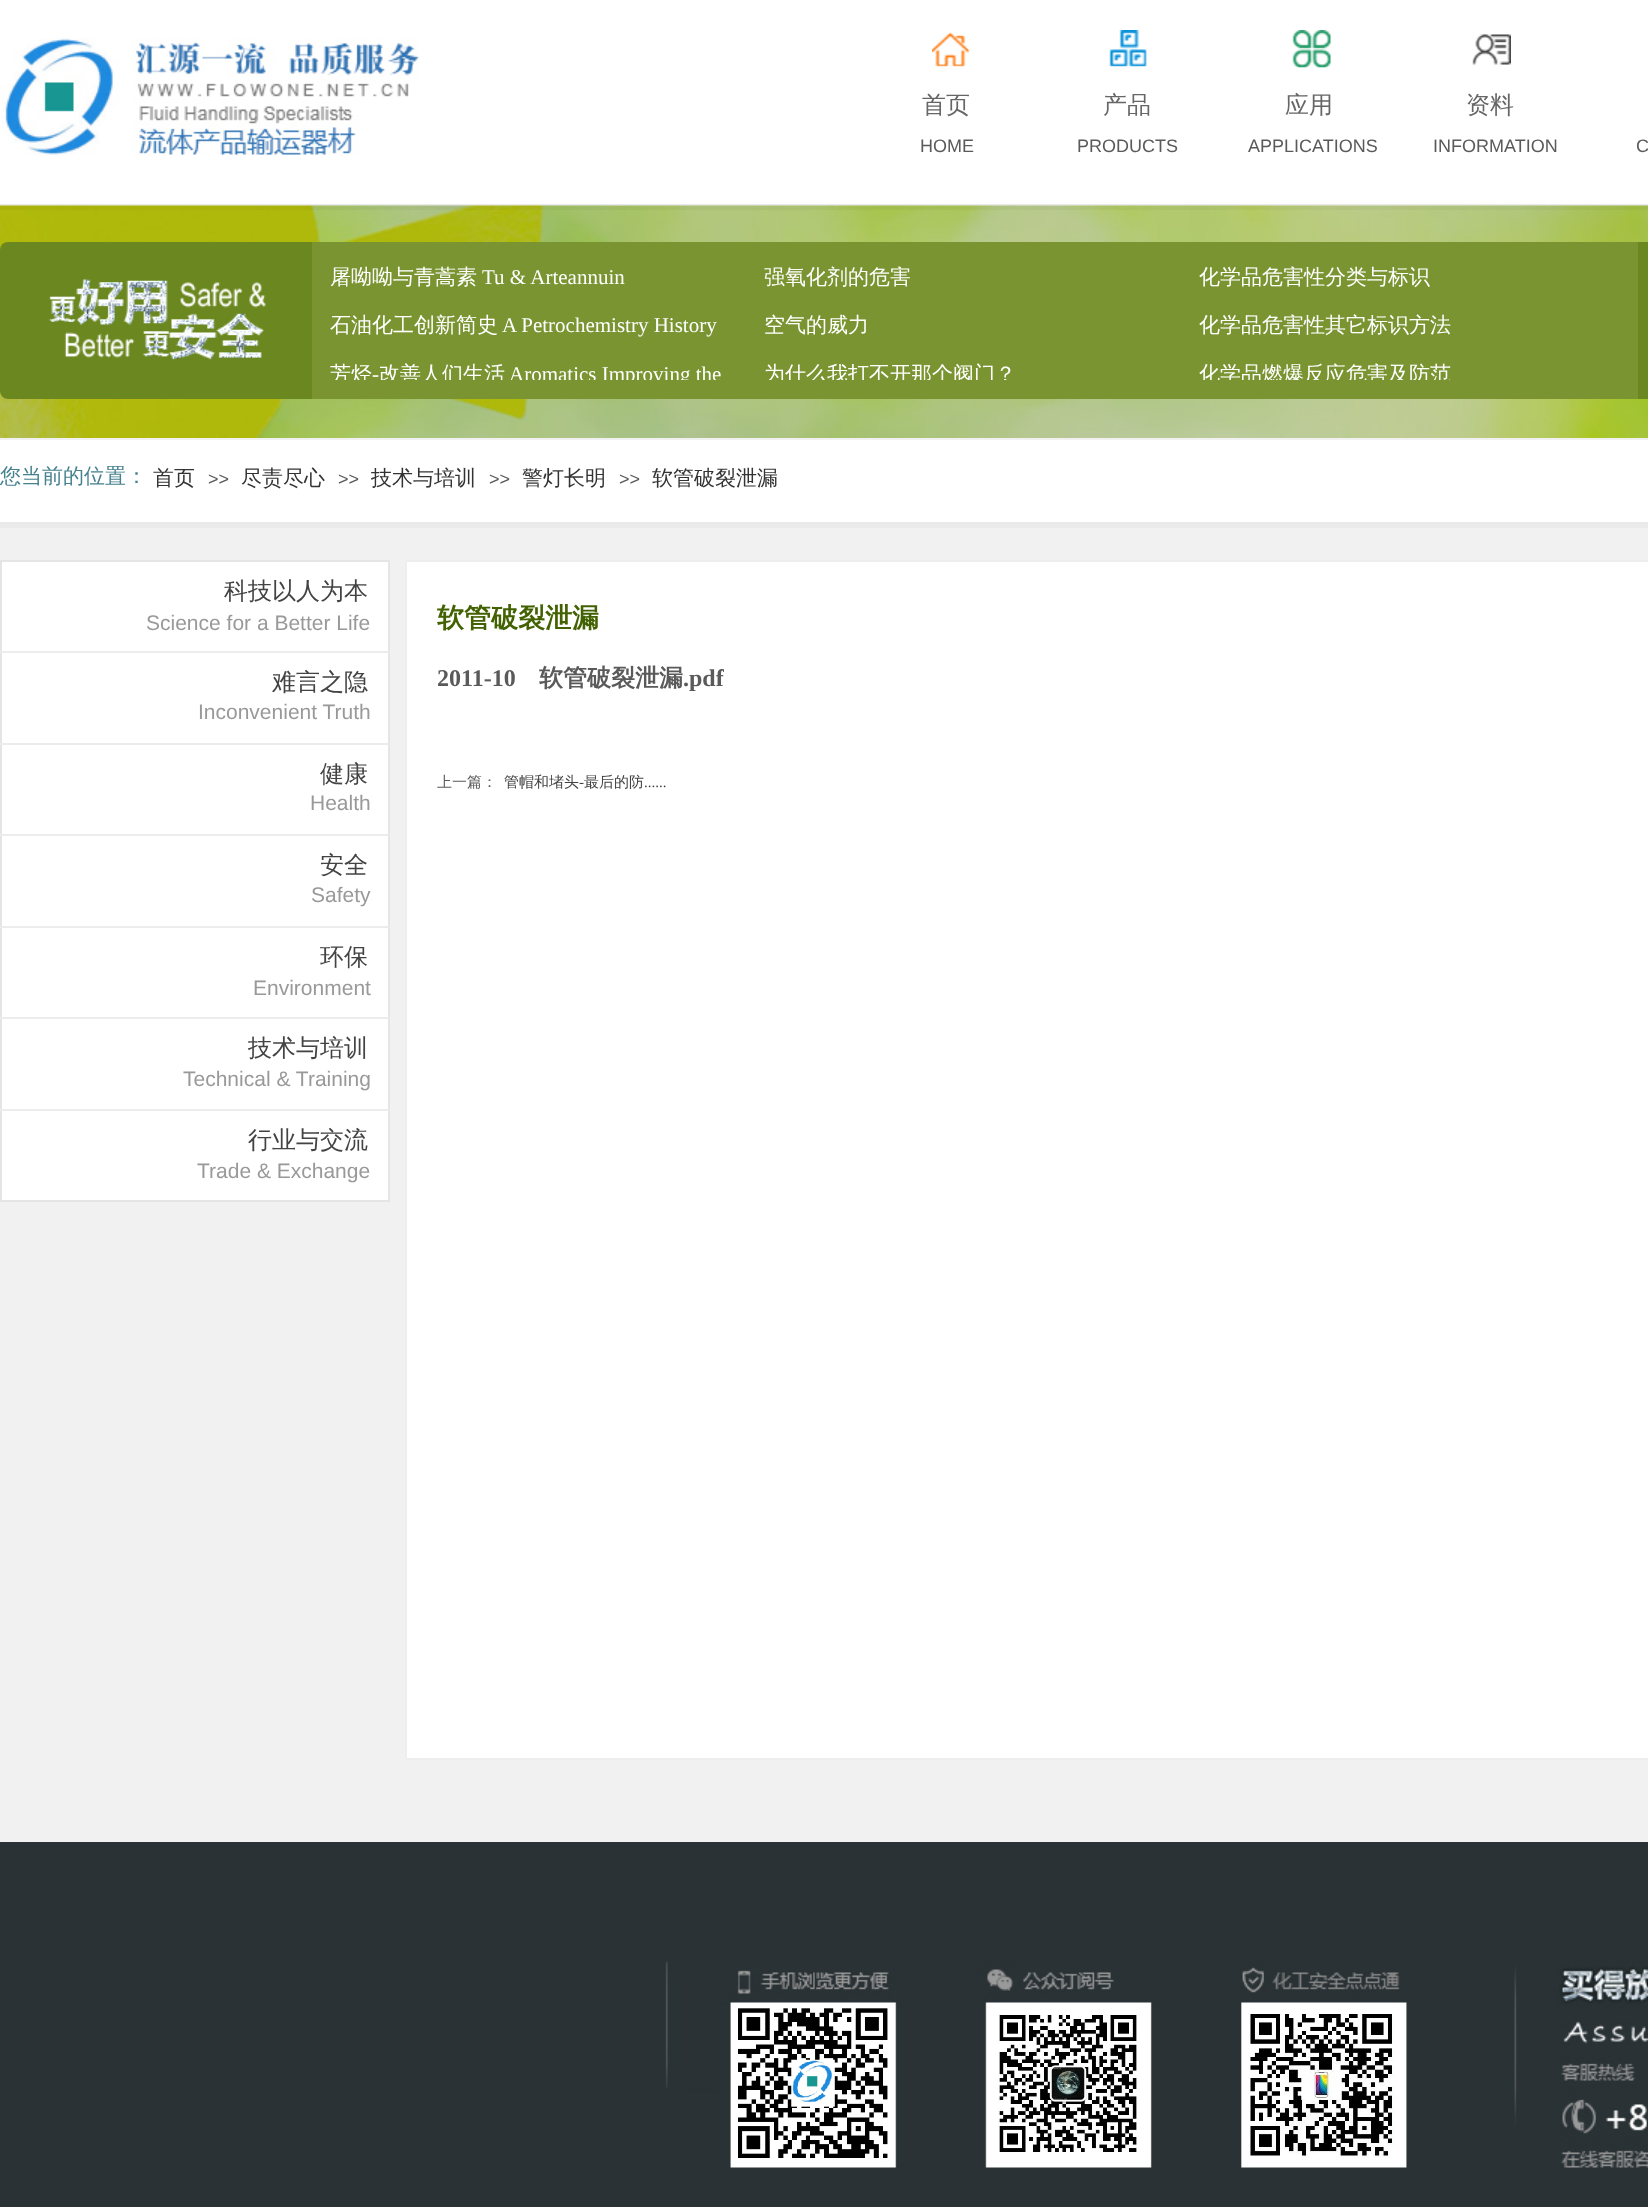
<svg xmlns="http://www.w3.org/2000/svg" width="1648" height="2207">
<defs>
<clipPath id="clip1"><rect x="329" y="261" width="420" height="119"/></clipPath>
<clipPath id="clip2"><rect x="762" y="261" width="420" height="119"/></clipPath>
<clipPath id="clip3"><rect x="1197" y="261" width="420" height="119"/></clipPath>
</defs>
<rect width="100%" height="100%" fill="#f1f1f1"/>
<rect width="1648" height="204" fill="#fff"/>
<image x="2" y="38" width="417" height="117" href="media/1.png"/>
<image x="932" y="32" width="38" height="35" href="media/2.png"/>
<image x="1109" y="30" width="38" height="37" href="media/3.png"/>
<image x="1292" y="30" width="39" height="38" href="media/4.png"/>
<image x="1472" y="34" width="39" height="31" href="media/5.png"/>
<text x="922" y="113" style="font-family:WenQuanYi Zen Hei;font-size:24px;font-weight:500;fill:#666">首页</text>
<text x="1103" y="113" style="font-family:WenQuanYi Zen Hei;font-size:24px;font-weight:500;fill:#666">产品</text>
<text x="1285" y="113" style="font-family:WenQuanYi Zen Hei;font-size:24px;font-weight:500;fill:#666">应用</text>
<text x="1466" y="113" style="font-family:WenQuanYi Zen Hei;font-size:24px;font-weight:500;fill:#666">资料</text>
<text x="920" y="152" style="font-family:Liberation Sans;font-size:18px;fill:#5a5a5a">HOME</text>
<text x="1077" y="152" style="font-family:Liberation Sans;font-size:18px;fill:#5a5a5a">PRODUCTS</text>
<text x="1248" y="152" style="font-family:Liberation Sans;font-size:18px;fill:#5a5a5a">APPLICATIONS</text>
<text x="1433" y="152" style="font-family:Liberation Sans;font-size:18px;fill:#5a5a5a">INFORMATION</text>
<text x="1636" y="152" style="font-family:Liberation Sans;font-size:18px;fill:#5a5a5a">C</text>
<image x="0" y="205" width="1648" height="233" href="media/6.png"/>
<rect y="204" width="1648" height="6" fill="#00000008"/>
<rect y="242" width="365" height="157" rx="8" fill="#6b871f"/>
<rect x="312" y="242" width="1326" height="157" fill="#799430"/>
<rect x="1638" y="242" width="10" height="157" fill="#6b871f"/>
<image x="48" y="279" width="218" height="81" href="media/7.png"/>
<text x="330" y="284" style="font-family:WenQuanYi Zen Hei;font-size:21px;font-weight:500;fill:#fff">屠呦呦与青蒿素</text>
<text x="482" y="284" style="font-family:Liberation Serif;font-size:21px;fill:#fff">Tu &amp; Arteannuin</text>
<text x="330" y="332" style="font-family:WenQuanYi Zen Hei;font-size:21px;font-weight:500;fill:#fff">石油化工创新简史</text>
<text x="502" y="332" style="font-family:Liberation Serif;font-size:21px;fill:#fff">A Petrochemistry History</text>
<g clip-path="url(#clip1)">
<text x="330" y="381" style="font-family:WenQuanYi Zen Hei;font-size:21px;font-weight:500;fill:#fff">芳烃</text>
</g>
<text x="372" y="381" style="font-family:Liberation Serif;font-size:21px;fill:#fff">-</text>
<g clip-path="url(#clip1)">
<text x="379" y="381" style="font-family:WenQuanYi Zen Hei;font-size:21px;font-weight:500;fill:#fff">改善人们生活</text>
<text x="509" y="381" style="font-family:Liberation Serif;font-size:21px;fill:#fff">Aromatics Improving the</text>
</g>
<text x="764" y="284" style="font-family:WenQuanYi Zen Hei;font-size:21px;font-weight:500;fill:#fff">强氧化剂的危害</text>
<text x="764" y="332" style="font-family:WenQuanYi Zen Hei;font-size:21px;font-weight:500;fill:#fff">空气的威力</text>
<g clip-path="url(#clip2)">
<text x="764" y="381" style="font-family:WenQuanYi Zen Hei;font-size:21px;font-weight:500;fill:#fff">为什么我打不开那个阀门？</text>
</g>
<text x="1199" y="284" style="font-family:WenQuanYi Zen Hei;font-size:21px;font-weight:500;fill:#fff">化学品危害性分类与标识</text>
<text x="1199" y="332" style="font-family:WenQuanYi Zen Hei;font-size:21px;font-weight:500;fill:#fff">化学品危害性其它标识方法</text>
<g clip-path="url(#clip3)">
<text x="1199" y="381" style="font-family:WenQuanYi Zen Hei;font-size:21px;font-weight:500;fill:#fff">化学品燃爆反应危害及防范</text>
</g>
<rect y="440" width="1648" height="82" fill="#fff"/>
<text x="0" y="483" style="font-family:WenQuanYi Zen Hei;font-size:21px;font-weight:500;fill:#45818e">您当前的位置：</text>
<text x="153" y="485" style="font-family:WenQuanYi Zen Hei;font-size:21px;font-weight:500;fill:#333">首页</text>
<text x="208" y="485" style="font-family:Liberation Sans;font-size:18px;fill:#5a5a5a">&gt;&gt;</text>
<text x="241" y="485" style="font-family:WenQuanYi Zen Hei;font-size:21px;font-weight:500;fill:#333">尽责尽心</text>
<text x="338" y="485" style="font-family:Liberation Sans;font-size:18px;fill:#5a5a5a">&gt;&gt;</text>
<text x="371" y="485" style="font-family:WenQuanYi Zen Hei;font-size:21px;font-weight:500;fill:#333">技术与培训</text>
<text x="489" y="485" style="font-family:Liberation Sans;font-size:18px;fill:#5a5a5a">&gt;&gt;</text>
<text x="522" y="485" style="font-family:WenQuanYi Zen Hei;font-size:21px;font-weight:500;fill:#333">警灯长明</text>
<text x="619" y="485" style="font-family:Liberation Sans;font-size:18px;fill:#5a5a5a">&gt;&gt;</text>
<text x="652" y="485" style="font-family:WenQuanYi Zen Hei;font-size:21px;font-weight:500;fill:#333">软管破裂泄漏</text>
<rect y="522" width="1648" height="6" fill="#eaeaea"/>
<rect x="1" y="561" width="388" height="640" fill="#fff" stroke="#e5e5e5" stroke-width="2"/>
<rect y="651" width="389" height="2" fill="#ececec"/>
<text x="224" y="599" style="font-family:WenQuanYi Zen Hei;font-size:24px;font-weight:500;fill:#434343">科技以人为本</text>
<rect y="743" width="389" height="2" fill="#ececec"/>
<text x="272" y="690" style="font-family:WenQuanYi Zen Hei;font-size:24px;font-weight:500;fill:#434343">难言之隐</text>
<rect y="834" width="389" height="2" fill="#ececec"/>
<text x="320" y="782" style="font-family:WenQuanYi Zen Hei;font-size:24px;font-weight:500;fill:#434343">健康</text>
<rect y="926" width="389" height="2" fill="#ececec"/>
<text x="320" y="873" style="font-family:WenQuanYi Zen Hei;font-size:24px;font-weight:500;fill:#434343">安全</text>
<rect y="1017" width="389" height="2" fill="#ececec"/>
<text x="320" y="965" style="font-family:WenQuanYi Zen Hei;font-size:24px;font-weight:500;fill:#434343">环保</text>
<rect y="1109" width="389" height="2" fill="#ececec"/>
<text x="248" y="1056" style="font-family:WenQuanYi Zen Hei;font-size:24px;font-weight:500;fill:#434343">技术与培训</text>
<text x="248" y="1148" style="font-family:WenQuanYi Zen Hei;font-size:24px;font-weight:500;fill:#434343">行业与交流</text>
<rect x="406" y="561" width="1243" height="1198" fill="#fff" stroke="#eee" stroke-width="2"/>
<text x="437" y="627" style="font-family:WenQuanYi Zen Hei;font-size:27px;font-weight:bold;fill:#426100">软管破裂泄漏</text>
<text x="437" y="686" style="font-family:Liberation Serif;font-size:24px;font-weight:bold;fill:#5a5a5a">2011-10</text>
<text x="539" y="686" style="font-family:WenQuanYi Zen Hei;font-size:24px;font-weight:bold;fill:#5a5a5a">软管破裂泄漏</text>
<text x="683" y="686" style="font-family:Liberation Serif;font-size:24px;font-weight:bold;fill:#5a5a5a">.pdf</text>
<text x="437" y="787" style="font-family:WenQuanYi Zen Hei;font-size:15px;font-weight:500;fill:#5a5a5a">上一篇：</text>
<text x="504" y="787" style="font-family:WenQuanYi Zen Hei;font-size:15px;font-weight:500;fill:#434343">管帽和堵头</text>
<text x="579" y="787" style="font-family:Liberation Serif;font-size:15px;fill:#434343">-</text>
<text x="584" y="787" style="font-family:WenQuanYi Zen Hei;font-size:15px;font-weight:500;fill:#434343">最后的防</text>
<text x="644" y="787" style="font-family:Liberation Serif;font-size:15px;fill:#434343">......</text>
<text x="146" y="630" style="font-family:Liberation Sans;font-size:21px;fill:#999">Science for a Better Life</text>
<text x="198" y="719" style="font-family:Liberation Sans;font-size:21px;fill:#999">Inconvenient Truth</text>
<text x="310" y="810" style="font-family:Liberation Sans;font-size:21px;fill:#999">Health</text>
<text x="311" y="902" style="font-family:Liberation Sans;font-size:21px;fill:#999">Safety</text>
<text x="253" y="995" style="font-family:Liberation Sans;font-size:21px;fill:#999">Environment</text>
<text x="183" y="1086" style="font-family:Liberation Sans;font-size:21px;fill:#999">Technical &amp; Training</text>
<text x="197" y="1178" style="font-family:Liberation Sans;font-size:21px;fill:#999">Trade &amp; Exchange</text>
<rect y="1842" width="1648" height="365" fill="#2a3235"/>
<image x="665" y="1961" width="983" height="207" href="media/8.png"/>
<image x="738" y="2008" width="150" height="150" href="media/9.png"/>
<image x="998" y="2014" width="139" height="138" href="media/10.png"/>
<image x="1250" y="2014" width="145" height="144" href="media/11.png"/>
</svg>
